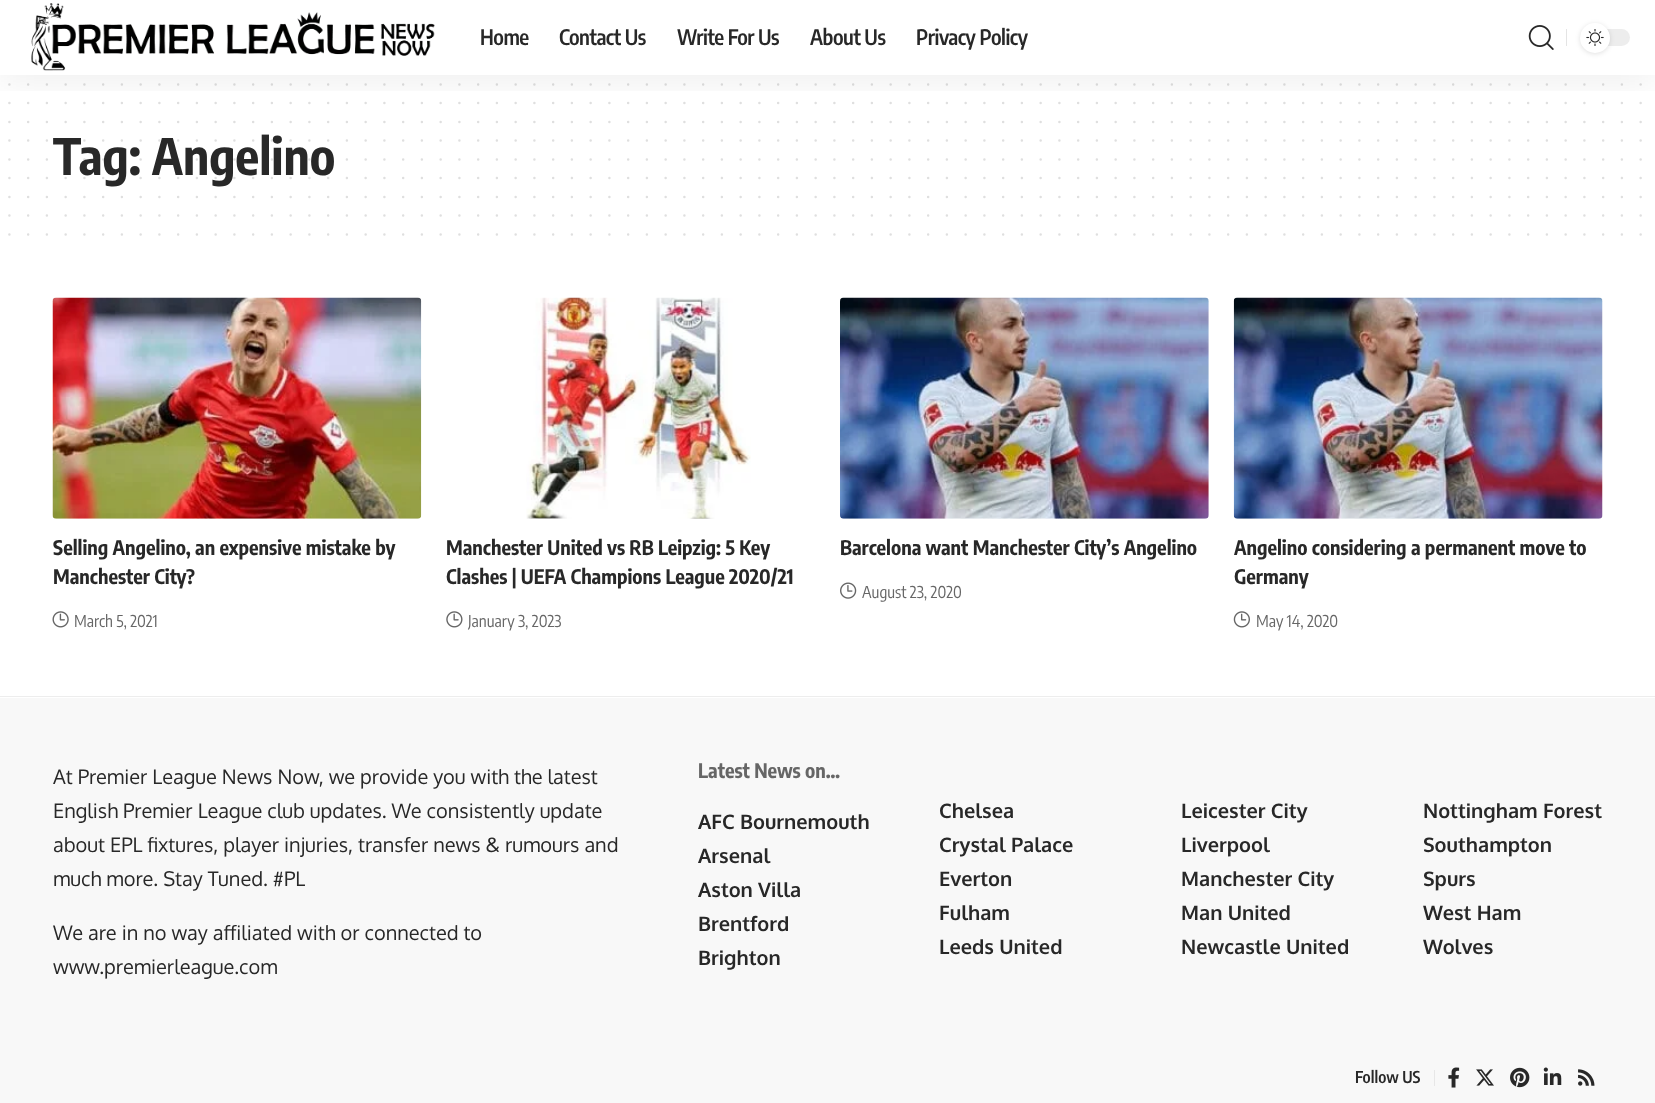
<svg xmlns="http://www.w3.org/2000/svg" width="1655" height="1103">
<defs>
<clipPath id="clip1"><rect x="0" y="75" width="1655" height="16"/></clipPath>
</defs>
<rect width="100%" height="100%" fill="#fff"/>
<path d="M9.4 84.4h1631.5" fill="none" stroke="#dfdfdf" stroke-width="2.5" stroke-linecap="round" stroke-dasharray="0 18.75"/>
<path d="M9.4 103.1h1631.5" fill="none" stroke="#dfdfdf" stroke-width="2.5" stroke-linecap="round" stroke-dasharray="0 18.75"/>
<path d="M9.4 121.9h1631.5" fill="none" stroke="#dfdfdf" stroke-width="2.5" stroke-linecap="round" stroke-dasharray="0 18.75"/>
<g clip-path="url(#clip1)">
<rect y="5" width="1655" height="75" fill="#00000012" filter="blur(19px)"/>
</g>
<image x="31" y="3" width="404" height="68" href="media/1.png"/>
<text x="480" y="45" style="font-family:Encode Sans Condensed;font-size:21.25px;font-weight:600;letter-spacing:-0.5px;fill:#282828">Home</text>
<text x="559" y="45" style="font-family:Encode Sans Condensed;font-size:21.25px;font-weight:600;letter-spacing:-0.5px;fill:#282828">Contact Us</text>
<text x="677" y="45" style="font-family:Encode Sans Condensed;font-size:21.25px;font-weight:600;letter-spacing:-0.5px;fill:#282828">Write For Us</text>
<text x="810" y="45" style="font-family:Encode Sans Condensed;font-size:21.25px;font-weight:600;letter-spacing:-0.5px;fill:#282828">About Us</text>
<text x="916" y="45" style="font-family:Encode Sans Condensed;font-size:21.25px;font-weight:600;letter-spacing:-0.5px;fill:#282828">Privacy Policy</text>
<image x="1528" y="25" width="26" height="25" href="media/2.png"/>
<rect x="1566" y="29" width="1" height="17" fill="#e4e4e4"/>
<rect x="1580" y="29" width="50" height="17" rx="8.5" fill="#ededed"/>
<rect x="1580" y="24" width="30" height="30" rx="15" fill="#0000001f" filter="blur(2.5px)"/>
<circle cx="1595" cy="38" r="15" fill="#fff"/>
<image x="1586" y="29" width="18" height="17" href="media/3.png"/>
<text x="53" y="175" style="font-family:Encode Sans Condensed;font-size:50px;font-weight:bold;fill:#282828">Tag: Angelino</text>
<path d="M9.4 140.6h1631.5" fill="none" stroke="#28282826" stroke-width="2.5" stroke-linecap="round" stroke-dasharray="0 18.75"/>
<path d="M9.4 159.4h1631.5" fill="none" stroke="#28282826" stroke-width="2.5" stroke-linecap="round" stroke-dasharray="0 18.75"/>
<path d="M9.4 178.1h1631.5" fill="none" stroke="#28282826" stroke-width="2.5" stroke-linecap="round" stroke-dasharray="0 18.75"/>
<path d="M9.4 196.9h1631.5" fill="none" stroke="#dfdfdf" stroke-width="2.5" stroke-linecap="round" stroke-dasharray="0 18.75"/>
<path d="M9.4 215.6h1631.5" fill="none" stroke="#dfdfdf" stroke-width="2.5" stroke-linecap="round" stroke-dasharray="0 18.75"/>
<path d="M9.4 234.4h1631.5" fill="none" stroke="#dfdfdf" stroke-width="2.5" stroke-linecap="round" stroke-dasharray="0 18.75"/>
<image x="52" y="297" width="370" height="222" href="media/4.png"/>
<text x="53" y="555" style="font-family:Encode Sans Condensed;font-size:20px;font-weight:bold;fill:#282828">Selling Angelino, an expensive mistake by</text>
<text x="53" y="584" style="font-family:Encode Sans Condensed;font-size:20px;font-weight:bold;fill:#282828">Manchester City?</text>
<image x="52" y="611" width="17" height="17" href="media/5.png"/>
<text x="74" y="627" style="font-family:Encode Sans Condensed;font-size:16.25px;fill:#666">March 5, 2021</text>
<image x="526" y="297" width="225" height="222" href="media/6.png"/>
<text x="446" y="555" style="font-family:Encode Sans Condensed;font-size:20px;font-weight:bold;fill:#282828">Manchester United vs RB Leipzig: 5 Key</text>
<text x="446" y="584" style="font-family:Encode Sans Condensed;font-size:20px;font-weight:bold;fill:#282828">Clashes | UEFA Champions League 2020/21</text>
<image x="446" y="611" width="17" height="17" href="media/7.png"/>
<text x="468" y="627" style="font-family:Encode Sans Condensed;font-size:16.25px;fill:#666">January 3, 2023</text>
<image x="840" y="297" width="369" height="222" href="media/8.png"/>
<text x="840" y="555" style="font-family:Encode Sans Condensed;font-size:20px;font-weight:bold;fill:#282828">Barcelona want Manchester City’s Angelino</text>
<image x="840" y="582" width="17" height="17" href="media/9.png"/>
<text x="862" y="598" style="font-family:Encode Sans Condensed;font-size:16.25px;fill:#666">August 23, 2020</text>
<image x="1233" y="297" width="370" height="222" href="media/10.png"/>
<text x="1234" y="555" style="font-family:Encode Sans Condensed;font-size:20px;font-weight:bold;fill:#282828">Angelino considering a permanent move to</text>
<text x="1234" y="584" style="font-family:Encode Sans Condensed;font-size:20px;font-weight:bold;fill:#282828">Germany</text>
<image x="1233" y="611" width="17" height="17" href="media/11.png"/>
<text x="1256" y="627" style="font-family:Encode Sans Condensed;font-size:16.25px;fill:#666">May 14, 2020</text>
<rect y="696" width="1655" height="1" fill="#ededed"/>
<rect y="698" width="1655" height="405" fill="#f8f8f8"/>
<text x="53" y="784" style="font-family:Oxygen;font-size:20px;fill:#282828">At Premier League News Now, we provide you with the latest</text>
<text x="53" y="818" style="font-family:Oxygen;font-size:20px;fill:#282828">English Premier League club updates. We consistently update</text>
<text x="53" y="852" style="font-family:Oxygen;font-size:20px;fill:#282828">about EPL fixtures, player injuries, transfer news &amp; rumours and</text>
<text x="53" y="886" style="font-family:Oxygen;font-size:20px;fill:#282828">much more. Stay Tuned. #PL</text>
<text x="53" y="940" style="font-family:Oxygen;font-size:20px;fill:#282828">We are in no way affiliated with or connected to</text>
<text x="53" y="974" style="font-family:Oxygen;font-size:20px;fill:#282828">www.premierleague.com</text>
<text x="698" y="778" style="font-family:Encode Sans Condensed;font-size:20px;font-weight:bold;fill:#666">Latest News on…</text>
<text x="698" y="829" style="font-family:Oxygen;font-size:20px;font-weight:bold;fill:#282828">AFC Bournemouth</text>
<text x="698" y="863" style="font-family:Oxygen;font-size:20px;font-weight:bold;fill:#282828">Arsenal</text>
<text x="698" y="897" style="font-family:Oxygen;font-size:20px;font-weight:bold;fill:#282828">Aston Villa</text>
<text x="698" y="931" style="font-family:Oxygen;font-size:20px;font-weight:bold;fill:#282828">Brentford</text>
<text x="698" y="965" style="font-family:Oxygen;font-size:20px;font-weight:bold;fill:#282828">Brighton</text>
<text x="939" y="818" style="font-family:Oxygen;font-size:20px;font-weight:bold;fill:#282828">Chelsea</text>
<text x="939" y="852" style="font-family:Oxygen;font-size:20px;font-weight:bold;fill:#282828">Crystal Palace</text>
<text x="939" y="886" style="font-family:Oxygen;font-size:20px;font-weight:bold;fill:#282828">Everton</text>
<text x="939" y="920" style="font-family:Oxygen;font-size:20px;font-weight:bold;fill:#282828">Fulham</text>
<text x="939" y="954" style="font-family:Oxygen;font-size:20px;font-weight:bold;fill:#282828">Leeds United</text>
<text x="1181" y="818" style="font-family:Oxygen;font-size:20px;font-weight:bold;fill:#282828">Leicester City</text>
<text x="1181" y="852" style="font-family:Oxygen;font-size:20px;font-weight:bold;fill:#282828">Liverpool</text>
<text x="1181" y="886" style="font-family:Oxygen;font-size:20px;font-weight:bold;fill:#282828">Manchester City</text>
<text x="1181" y="920" style="font-family:Oxygen;font-size:20px;font-weight:bold;fill:#282828">Man United</text>
<text x="1181" y="954" style="font-family:Oxygen;font-size:20px;font-weight:bold;fill:#282828">Newcastle United</text>
<text x="1423" y="818" style="font-family:Oxygen;font-size:20px;font-weight:bold;fill:#282828">Nottingham Forest</text>
<text x="1423" y="852" style="font-family:Oxygen;font-size:20px;font-weight:bold;fill:#282828">Southampton</text>
<text x="1423" y="886" style="font-family:Oxygen;font-size:20px;font-weight:bold;fill:#282828">Spurs</text>
<text x="1423" y="920" style="font-family:Oxygen;font-size:20px;font-weight:bold;fill:#282828">West Ham</text>
<text x="1423" y="954" style="font-family:Oxygen;font-size:20px;font-weight:bold;fill:#282828">Wolves</text>
<rect x="1434" y="1070" width="1" height="16" fill="#e7e7e7"/>
<text x="1355" y="1083" style="font-family:Encode Sans Condensed;font-size:16.25px;font-weight:600;fill:#282828">Follow US</text>
<image x="1448" y="1067" width="12" height="21" href="media/12.png"/>
<image x="1476" y="1069" width="18" height="17" href="media/13.png"/>
<image x="1510" y="1067" width="20" height="21" href="media/14.png"/>
<image x="1543" y="1067" width="19" height="18" href="media/15.png"/>
<image x="1578" y="1069" width="17" height="17" href="media/16.png"/>
</svg>
